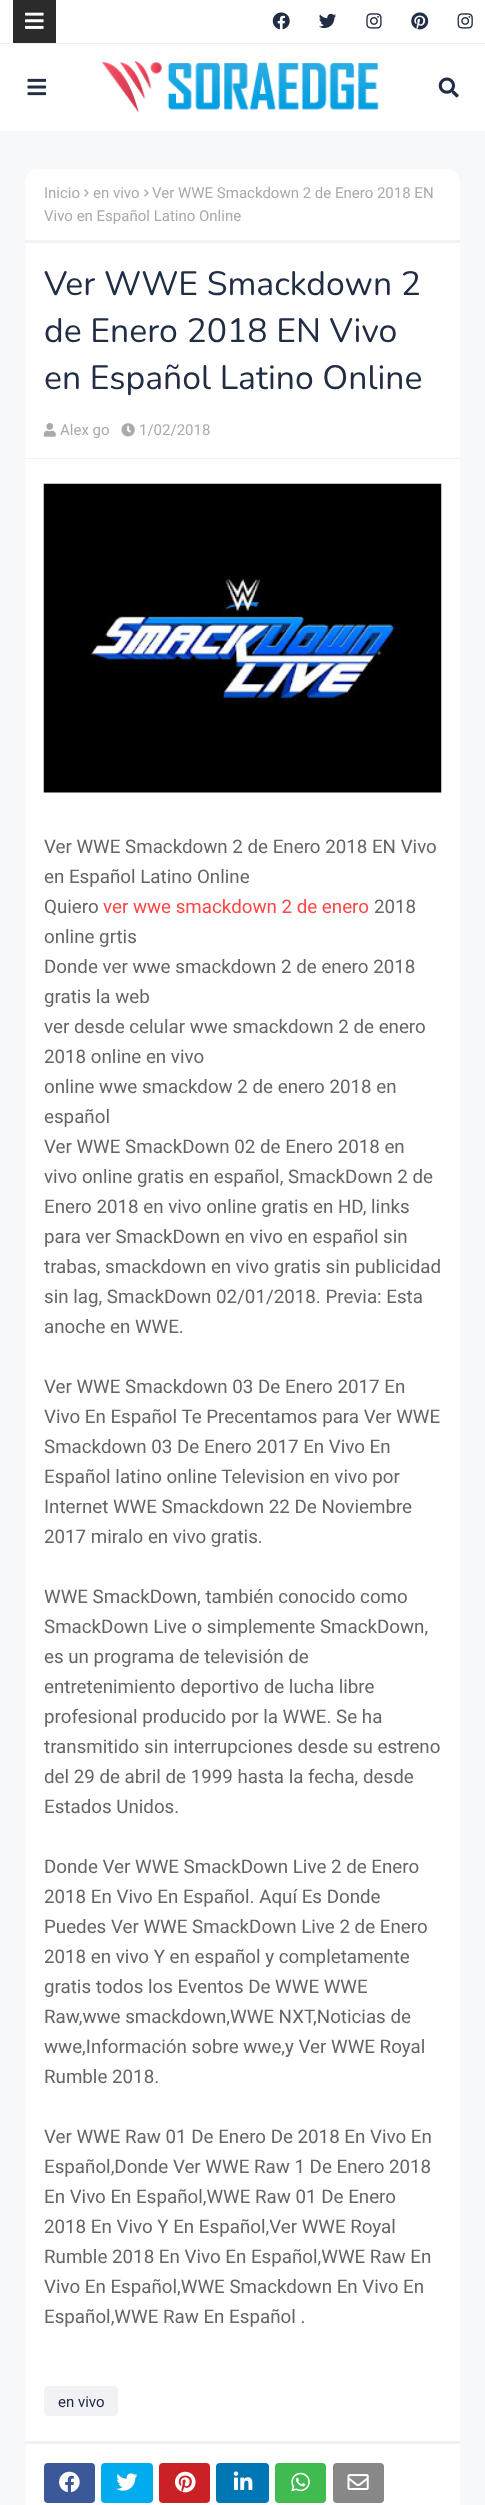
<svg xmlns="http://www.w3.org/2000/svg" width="485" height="2505">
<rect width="100%" height="100%" fill="#f7f8f9"/>
<rect width="485" height="43" fill="#fff"/>
<rect y="43" width="485" height="1" fill="#eef0f9"/>
<rect x="13" width="43" height="43" fill="#2b2b2b"/>
<image x="25" y="12" width="19" height="17" href="media/1.png"/>
<image x="272" y="12" width="18" height="18" href="media/2.png"/>
<image x="319" y="13" width="18" height="16" href="media/3.png"/>
<image x="366" y="13" width="16" height="16" href="media/4.png"/>
<image x="411" y="12" width="18" height="18" href="media/5.png"/>
<image x="457" y="13" width="16" height="16" href="media/6.png"/>
<rect y="44" width="485" height="87" fill="#fff"/>
<image x="27" y="78" width="20" height="18" href="media/7.png"/>
<image x="102" y="61" width="277" height="52" href="media/8.png"/>
<image x="438" y="77" width="21" height="21" href="media/9.png"/>
<path d="M38 169h409c7 0 13 6 13 13v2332c0 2-2 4-4 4h-427c-2 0-4-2-4-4v-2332c0-7 6-13 13-13z" fill="#fff"/>
<rect x="25" y="240" width="435" height="3" fill="#f2f2f6"/>
<text x="44" y="198" style="font-family:Roboto;font-size:15px;fill:#aaa">Inicio</text>
<image x="84" y="189" width="5" height="8" href="media/10.png"/>
<text x="93" y="198" style="font-family:Roboto;font-size:15px;fill:#aaa">en vivo</text>
<image x="144" y="189" width="5" height="8" href="media/10.png"/>
<text x="152" y="198" style="font-family:Roboto;font-size:15px;fill:#aaa">Ver WWE Smackdown 2 de Enero 2018 EN</text>
<text x="44" y="221" style="font-family:Roboto;font-size:15px;fill:#aaa">Vivo en Español Latino Online</text>
<text x="44" y="295" style="font-family:Nunito;font-size:33.75px;fill:#212d45">Ver WWE Smackdown 2</text>
<text x="44" y="342" style="font-family:Nunito;font-size:33.75px;fill:#212d45">de Enero 2018 EN Vivo</text>
<text x="44" y="389" style="font-family:Nunito;font-size:33.75px;fill:#212d45">en Español Latino Online</text>
<image x="43" y="423" width="13" height="14" href="media/11.png"/>
<text x="60" y="435" style="font-family:Roboto;font-size:15px;fill:#aaa">Alex go</text>
<image x="121" y="423" width="14" height="14" href="media/12.png"/>
<text x="139" y="435" style="font-family:Roboto;font-size:15px;fill:#aaa">1/02/2018</text>
<rect x="25" y="458" width="435" height="1" fill="#f2f2f6"/>
<image x="43" y="483" width="399" height="310" href="media/13.png"/>
<text x="44" y="853" style="font-family:Roboto;font-size:18.75px;fill:#656565">Ver WWE Smackdown 2 de Enero 2018 EN Vivo</text>
<text x="44" y="883" style="font-family:Roboto;font-size:18.75px;fill:#656565">en Español Latino Online</text>
<text x="44" y="913" style="font-family:Roboto;font-size:18.75px;fill:#656565">Quiero</text>
<text x="103" y="913" style="font-family:Roboto;font-size:18.75px;fill:#ff4545">ver wwe smackdown 2 de enero</text>
<text x="374" y="913" style="font-family:Roboto;font-size:18.75px;fill:#656565">2018</text>
<text x="44" y="943" style="font-family:Roboto;font-size:18.75px;fill:#656565">online grtis</text>
<text x="44" y="973" style="font-family:Roboto;font-size:18.75px;fill:#656565">Donde ver wwe smackdown 2 de enero 2018</text>
<text x="44" y="1003" style="font-family:Roboto;font-size:18.75px;fill:#656565">gratis la web</text>
<text x="44" y="1033" style="font-family:Roboto;font-size:18.75px;fill:#656565">ver desde celular wwe smackdown 2 de enero</text>
<text x="44" y="1063" style="font-family:Roboto;font-size:18.75px;fill:#656565">2018 online en vivo</text>
<text x="44" y="1093" style="font-family:Roboto;font-size:18.75px;fill:#656565">online wwe smackdow 2 de enero 2018 en</text>
<text x="44" y="1123" style="font-family:Roboto;font-size:18.75px;fill:#656565">español</text>
<text x="44" y="1153" style="font-family:Roboto;font-size:18.75px;fill:#656565">Ver WWE SmackDown 02 de Enero 2018 en</text>
<text x="44" y="1183" style="font-family:Roboto;font-size:18.75px;fill:#656565">vivo online gratis en español, SmackDown 2 de</text>
<text x="44" y="1213" style="font-family:Roboto;font-size:18.75px;fill:#656565">Enero 2018 en vivo online gratis en HD, links</text>
<text x="44" y="1243" style="font-family:Roboto;font-size:18.75px;fill:#656565">para ver SmackDown en vivo en español sin</text>
<text x="44" y="1273" style="font-family:Roboto;font-size:18.75px;fill:#656565">trabas, smackdown en vivo gratis sin publicidad</text>
<text x="44" y="1303" style="font-family:Roboto;font-size:18.75px;fill:#656565">sin lag, SmackDown 02/01/2018. Previa: Esta</text>
<text x="44" y="1333" style="font-family:Roboto;font-size:18.75px;fill:#656565">anoche en WWE.</text>
<text x="44" y="1393" style="font-family:Roboto;font-size:18.75px;fill:#656565">Ver WWE Smackdown 03 De Enero 2017 En</text>
<text x="44" y="1423" style="font-family:Roboto;font-size:18.75px;fill:#656565">Vivo En Español Te Precentamos para Ver WWE</text>
<text x="44" y="1453" style="font-family:Roboto;font-size:18.75px;fill:#656565">Smackdown 03 De Enero 2017 En Vivo En</text>
<text x="44" y="1483" style="font-family:Roboto;font-size:18.75px;fill:#656565">Español latino online Television en vivo por</text>
<text x="44" y="1513" style="font-family:Roboto;font-size:18.75px;fill:#656565">Internet WWE Smackdown 22 De Noviembre</text>
<text x="44" y="1543" style="font-family:Roboto;font-size:18.75px;fill:#656565">2017 miralo en vivo gratis.</text>
<text x="44" y="1603" style="font-family:Roboto;font-size:18.75px;fill:#656565">WWE SmackDown, también conocido como</text>
<text x="44" y="1633" style="font-family:Roboto;font-size:18.75px;fill:#656565">SmackDown Live o simplemente SmackDown,</text>
<text x="44" y="1663" style="font-family:Roboto;font-size:18.75px;fill:#656565">es un programa de televisión de</text>
<text x="44" y="1693" style="font-family:Roboto;font-size:18.75px;fill:#656565">entretenimiento deportivo de lucha libre</text>
<text x="44" y="1723" style="font-family:Roboto;font-size:18.75px;fill:#656565">profesional producido por la WWE. Se ha</text>
<text x="44" y="1753" style="font-family:Roboto;font-size:18.75px;fill:#656565">transmitido sin interrupciones desde su estreno</text>
<text x="44" y="1783" style="font-family:Roboto;font-size:18.75px;fill:#656565">del 29 de abril de 1999 hasta la fecha, desde</text>
<text x="44" y="1813" style="font-family:Roboto;font-size:18.75px;fill:#656565">Estados Unidos.</text>
<text x="44" y="1873" style="font-family:Roboto;font-size:18.75px;fill:#656565">Donde Ver WWE SmackDown Live 2 de Enero</text>
<text x="44" y="1903" style="font-family:Roboto;font-size:18.75px;fill:#656565">2018 En Vivo En Español. Aquí Es Donde</text>
<text x="44" y="1933" style="font-family:Roboto;font-size:18.75px;fill:#656565">Puedes Ver WWE SmackDown Live 2 de Enero</text>
<text x="44" y="1963" style="font-family:Roboto;font-size:18.75px;fill:#656565">2018 en vivo Y en español y completamente</text>
<text x="44" y="1993" style="font-family:Roboto;font-size:18.75px;fill:#656565">gratis todos los Eventos De WWE WWE</text>
<text x="44" y="2023" style="font-family:Roboto;font-size:18.75px;fill:#656565">Raw,wwe smackdown,WWE NXT,Noticias de</text>
<text x="44" y="2053" style="font-family:Roboto;font-size:18.75px;fill:#656565">wwe,Información sobre wwe,y Ver WWE Royal</text>
<text x="44" y="2083" style="font-family:Roboto;font-size:18.75px;fill:#656565">Rumble 2018.</text>
<text x="44" y="2143" style="font-family:Roboto;font-size:18.75px;fill:#656565">Ver WWE Raw 01 De Enero De 2018 En Vivo En</text>
<text x="44" y="2173" style="font-family:Roboto;font-size:18.75px;fill:#656565">Español,Donde Ver WWE Raw 1 De Enero 2018</text>
<text x="44" y="2203" style="font-family:Roboto;font-size:18.75px;fill:#656565">En Vivo En Español,WWE Raw 01 De Enero</text>
<text x="44" y="2233" style="font-family:Roboto;font-size:18.75px;fill:#656565">2018 En Vivo Y En Español,Ver WWE Royal</text>
<text x="44" y="2263" style="font-family:Roboto;font-size:18.75px;fill:#656565">Rumble 2018 En Vivo En Español,WWE Raw En</text>
<text x="44" y="2293" style="font-family:Roboto;font-size:18.75px;fill:#656565">Vivo En Español,WWE Smackdown En Vivo En</text>
<text x="44" y="2323" style="font-family:Roboto;font-size:18.75px;fill:#656565">Español,WWE Raw En Español .</text>
<path d="M48 2386h66c2 0 4 2 4 4v22c0 2-2 4-4 4h-66c-2 0-4-2-4-4v-22c0-2 2-4 4-4z" fill="#f2f2f6"/>
<text x="58" y="2407" style="font-family:Roboto;font-size:15px;fill:#212d45">en vivo</text>
<rect x="25" y="2441" width="435" height="3" fill="#f2f2f6"/>
<rect x="44" y="2463" width="51" height="40" rx="4" fill="#3b5999"/>
<image x="59" y="2471" width="21" height="22" href="media/14.png"/>
<rect x="101" y="2463" width="52" height="40" rx="4" fill="#00acee"/>
<image x="116" y="2473" width="22" height="18" href="media/15.png"/>
<rect x="159" y="2463" width="51" height="40" rx="4" fill="#ca2127"/>
<image x="175" y="2471" width="21" height="22" href="media/16.png"/>
<rect x="216" y="2463" width="53" height="40" rx="4" fill="#0077b5"/>
<image x="233" y="2471" width="20" height="19" href="media/17.png"/>
<rect x="275" y="2463" width="51" height="40" rx="4" fill="#3fbb50"/>
<image x="291" y="2472" width="19" height="20" href="media/18.png"/>
<rect x="333" y="2463" width="51" height="40" rx="4" fill="#888"/>
<image x="347" y="2474" width="22" height="16" href="media/19.png"/>
</svg>
